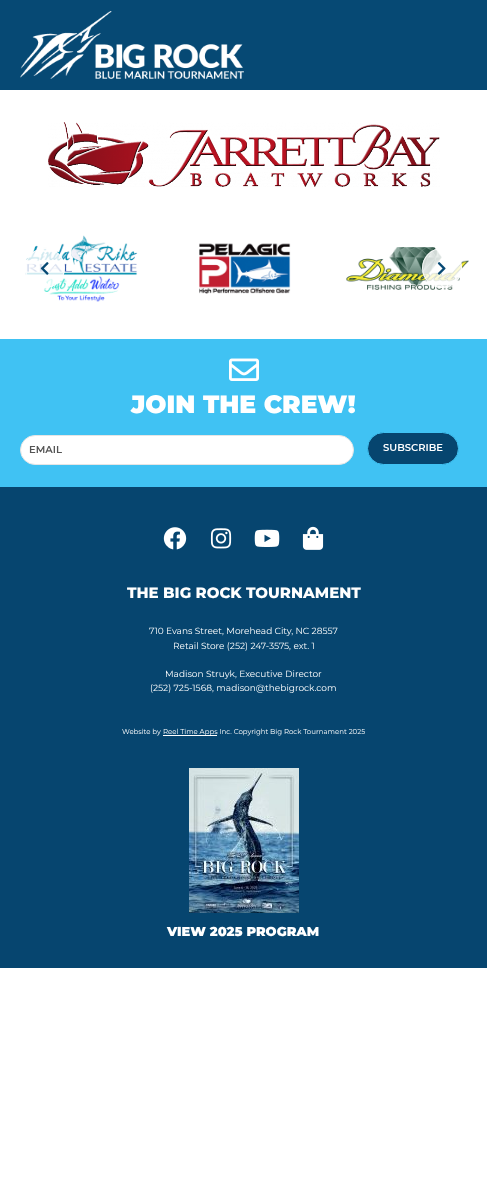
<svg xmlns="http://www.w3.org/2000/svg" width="487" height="1203">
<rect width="100%" height="100%" fill="#fff"/>
<rect width="487" height="90" fill="#064974"/>
<image x="20" y="11" width="224" height="68" href="media/1.png"/>
<image x="48" y="122" width="392" height="65" href="media/2.png"/>
<image x="25" y="235" width="113" height="67" href="media/3.png"/>
<image x="199" y="243" width="92" height="51" href="media/4.png"/>
<image x="346" y="247" width="123" height="43" href="media/5.png"/>
<circle cx="45" cy="268" r="20" fill="#ffffffcc"/>
<circle cx="45" cy="268" r="19.5" fill="none" stroke="#ffffffcc"/>
<image x="40" y="262" width="9" height="13" href="media/6.png"/>
<circle cx="442" cy="268" r="20" fill="#ffffffcc"/>
<circle cx="442" cy="268" r="19.5" fill="none" stroke="#ffffffcc"/>
<image x="437" y="262" width="9" height="13" href="media/7.png"/>
<rect y="339" width="487" height="148" fill="#40c2f3"/>
<image x="229" y="358" width="30" height="23" href="media/8.png"/>
<text x="131" y="413" style="font-family:Montserrat;font-size:25px;font-weight:900;fill:#fff">JOIN THE CREW!</text>
<rect x="20.5" y="435.5" width="333" height="29" rx="14.5" fill="#fff" stroke="#e5e5e5"/>
<text x="29" y="453" style="font-family:Montserrat;font-size:10px;font-weight:600;fill:#545454">EMAIL</text>
<rect x="367.5" y="432.5" width="91" height="32" rx="16" fill="#06456f" stroke="#40c2f3"/>
<text x="383" y="451" style="font-family:Montserrat;font-size:10px;font-weight:600;fill:#fff">SUBSCRIBE</text>
<rect y="487" width="487" height="481" fill="#06456f"/>
<image x="163" y="527" width="24" height="23" href="media/9.png"/>
<image x="210" y="528" width="22" height="21" href="media/10.png"/>
<image x="254" y="529" width="26" height="18" href="media/11.png"/>
<image x="302" y="526" width="22" height="24" href="media/12.png"/>
<text x="127" y="598" style="font-family:Montserrat;font-size:15px;font-weight:800;fill:#fff">THE BIG ROCK TOURNAMENT</text>
<text x="149" y="634" style="font-family:Montserrat;font-size:9px;fill:#fff">710 Evans Street, Morehead City, NC 28557</text>
<text x="173" y="649" style="font-family:Montserrat;font-size:9px;fill:#fff">Retail Store (252) 247-3575, ext. 1</text>
<text x="165" y="677" style="font-family:Montserrat;font-size:9px;fill:#fff">Madison Struyk, Executive Director</text>
<text x="150" y="691" style="font-family:Montserrat;font-size:9px;fill:#fff">(252) 725-1568, madison@thebigrock.com</text>
<text x="122" y="734" style="font-family:Montserrat;font-size:7px;fill:#fff">Website by</text>
<rect x="163" y="735" width="54" height="1" fill="#fff"/>
<text x="163" y="734" style="font-family:Montserrat;font-size:7px;fill:#fff">Reel Time Apps Inc. Copyright Big Rock Tournament 2025</text>
<image x="189" y="768" width="110" height="145" href="media/13.png"/>
<text x="167" y="936" style="font-family:Montserrat;font-size:13px;font-weight:900;fill:#fff">VIEW 2025 PROGRAM</text>
</svg>
